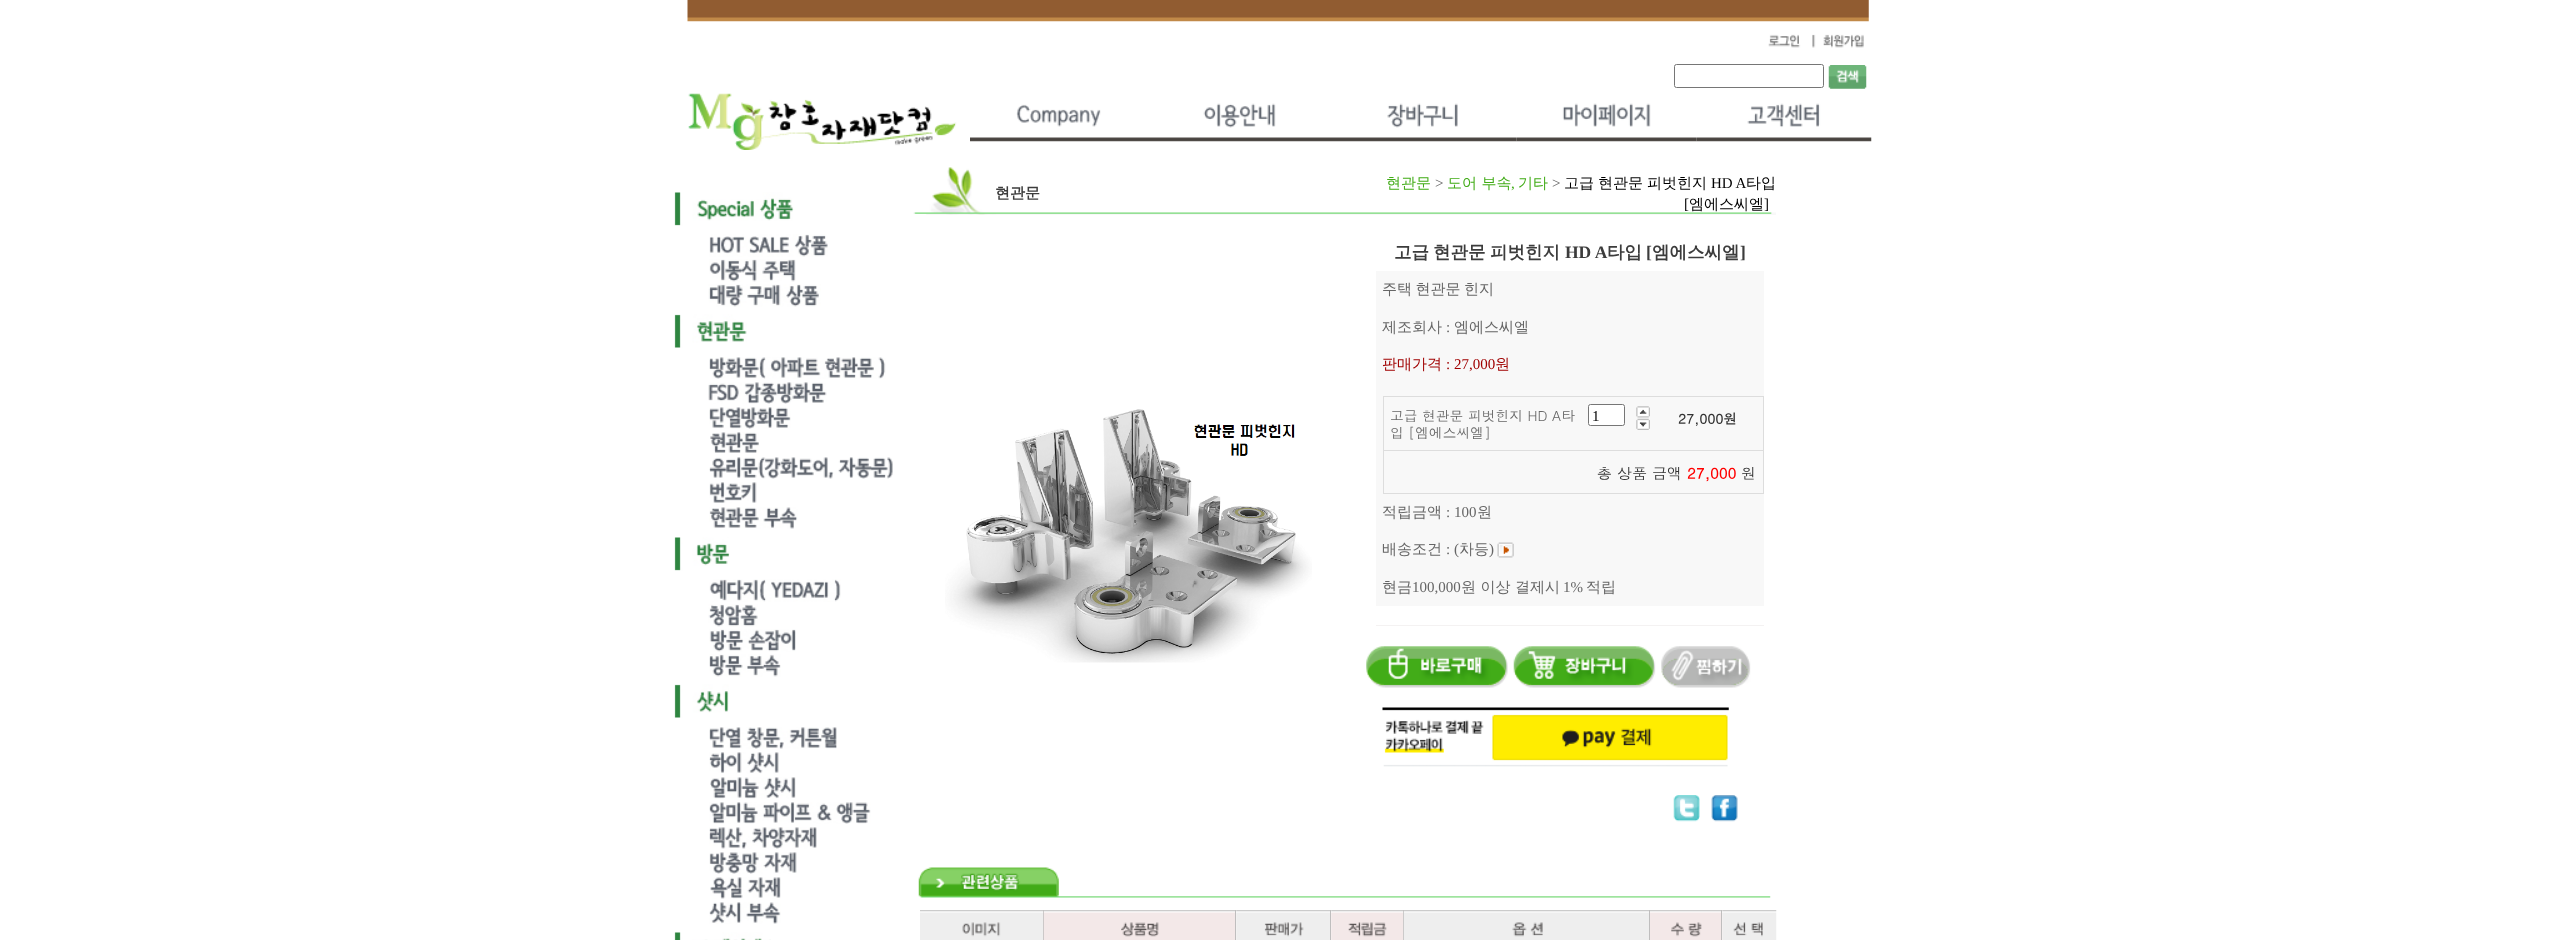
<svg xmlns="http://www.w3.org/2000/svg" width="2557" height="940">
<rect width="100%" height="100%" fill="#fff"/>
<image x="687" y="0" width="1182" height="22" href="media/1.png"/>
<image x="1768" y="34" width="48" height="14" href="media/2.png"/>
<image x="1823" y="34" width="41" height="14" href="media/3.png"/>
<rect x="1674.5" y="64.5" width="149" height="23" rx="2" fill="none" stroke="#767676"/>
<image x="1828" y="65" width="39" height="24" href="media/4.png"/>
<image x="688" y="93" width="269" height="57" href="media/5.png"/>
<image x="970" y="104" width="180" height="38" href="media/6.png"/>
<image x="1150" y="103" width="180" height="39" href="media/7.png"/>
<image x="1330" y="103" width="187" height="39" href="media/8.png"/>
<image x="1516" y="103" width="181" height="39" href="media/9.png"/>
<image x="1696" y="103" width="176" height="39" href="media/10.png"/>
<image x="674" y="192" width="120" height="34" href="media/11.png"/>
<image x="709" y="234" width="119" height="23" href="media/12.png"/>
<image x="709" y="259" width="87" height="23" href="media/13.png"/>
<image x="708" y="284" width="113" height="23" href="media/14.png"/>
<image x="674" y="314" width="73" height="34" href="media/15.png"/>
<image x="709" y="357" width="177" height="22" href="media/16.png"/>
<image x="708" y="382" width="119" height="22" href="media/17.png"/>
<image x="709" y="407" width="82" height="22" href="media/18.png"/>
<image x="710" y="432" width="49" height="21" href="media/19.png"/>
<image x="709" y="457" width="184" height="22" href="media/20.png"/>
<image x="709" y="482" width="48" height="21" href="media/21.png"/>
<image x="709" y="507" width="89" height="22" href="media/22.png"/>
<image x="674" y="537" width="56" height="34" href="media/23.png"/>
<image x="709" y="579" width="132" height="23" href="media/24.png"/>
<image x="708" y="604" width="50" height="23" href="media/25.png"/>
<image x="709" y="629" width="87" height="23" href="media/26.png"/>
<image x="709" y="654" width="72" height="23" href="media/27.png"/>
<image x="674" y="684" width="55" height="34" href="media/28.png"/>
<image x="709" y="727" width="128" height="22" href="media/29.png"/>
<image x="709" y="752" width="70" height="22" href="media/30.png"/>
<image x="710" y="777" width="86" height="22" href="media/31.png"/>
<image x="709" y="802" width="162" height="22" href="media/32.png"/>
<image x="709" y="827" width="108" height="22" href="media/33.png"/>
<image x="709" y="852" width="88" height="22" href="media/34.png"/>
<image x="710" y="877" width="71" height="22" href="media/35.png"/>
<image x="709" y="902" width="72" height="22" href="media/36.png"/>
<image x="674" y="932" width="97" height="8" href="media/37.png"/>
<image x="913" y="167" width="863" height="48" href="media/38.png"/>
<text x="995" y="198" style="font-family:WenQuanYi Zen Hei;font-size:15px;font-weight:bold;fill:#3c3c3c">현관문</text>
<text x="1386" y="188" style="font-family:WenQuanYi Zen Hei;font-size:15px;font-weight:500;fill:#42ac18">현관문</text>
<text x="1435" y="188" style="font-family:Liberation Serif;font-size:15px;fill:#666">&gt;</text>
<text x="1447" y="188" style="font-family:WenQuanYi Zen Hei;font-size:15px;font-weight:500;fill:#42ac18">도어 부속</text>
<text x="1518" y="188" style="font-family:WenQuanYi Zen Hei;font-size:15px;font-weight:500;fill:#42ac18">기타</text>
<text x="1552" y="188" style="font-family:Liberation Serif;font-size:15px;fill:#666">&gt;</text>
<text x="1564" y="188" style="font-family:WenQuanYi Zen Hei;font-size:15px;font-weight:500;fill:#000">고급</text>
<text x="1598" y="188" style="font-family:WenQuanYi Zen Hei;font-size:15px;font-weight:500;fill:#000">현관문</text>
<text x="1647" y="188" style="font-family:WenQuanYi Zen Hei;font-size:15px;font-weight:500;fill:#000">피벗힌지</text>
<text x="1711" y="188" style="font-family:Liberation Serif;font-size:15px;fill:#000">HD A</text>
<text x="1746" y="188" style="font-family:WenQuanYi Zen Hei;font-size:15px;font-weight:500;fill:#000">타입</text>
<text x="1511" y="188" style="font-family:Liberation Serif;font-size:15px;fill:#42ac18">,</text>
<text x="1684" y="209" style="font-family:Liberation Serif;font-size:15px;fill:#000">[</text>
<text x="1689" y="209" style="font-family:WenQuanYi Zen Hei;font-size:15px;font-weight:500;fill:#000">엠에스씨엘</text>
<text x="1764" y="209" style="font-family:Liberation Serif;font-size:15px;fill:#000">]</text>
<image x="945" y="409" width="367" height="254" href="media/39.png"/>
<text x="1394" y="258" style="font-family:WenQuanYi Zen Hei;font-size:17.5px;font-weight:bold;fill:#3c3c3c">고급</text>
<text x="1433" y="258" style="font-family:WenQuanYi Zen Hei;font-size:17.5px;font-weight:bold;fill:#3c3c3c">현관문</text>
<text x="1490" y="258" style="font-family:WenQuanYi Zen Hei;font-size:17.5px;font-weight:bold;fill:#3c3c3c">피벗힌지</text>
<text x="1565" y="258" style="font-family:Liberation Serif;font-size:17.5px;font-weight:bold;fill:#3c3c3c">HD A</text>
<text x="1607" y="258" style="font-family:WenQuanYi Zen Hei;font-size:17.5px;font-weight:bold;fill:#3c3c3c">타입</text>
<text x="1646" y="258" style="font-family:Liberation Serif;font-size:17.5px;font-weight:bold;fill:#3c3c3c">[</text>
<text x="1652" y="258" style="font-family:WenQuanYi Zen Hei;font-size:17.5px;font-weight:bold;fill:#3c3c3c">엠에스씨엘</text>
<text x="1740" y="258" style="font-family:Liberation Serif;font-size:17.5px;font-weight:bold;fill:#3c3c3c">]</text>
<rect x="1376" y="271" width="388" height="335" fill="#f8f8f8"/>
<text x="1382" y="294" word-spacing="-1" style="font-family:WenQuanYi Zen Hei;font-size:15px;font-weight:500;fill:#666">주택 현관문 힌지</text>
<text x="1382" y="332" style="font-family:WenQuanYi Zen Hei;font-size:15px;font-weight:500;fill:#666">제조회사</text>
<text x="1446" y="332" style="font-family:Liberation Serif;font-size:15px;fill:#666">:</text>
<text x="1454" y="332" style="font-family:WenQuanYi Zen Hei;font-size:15px;font-weight:500;fill:#666">엠에스씨엘</text>
<text x="1382" y="369" style="font-family:WenQuanYi Zen Hei;font-size:15px;font-weight:500;fill:#a00000">판매가격</text>
<text x="1446" y="369" style="font-family:Liberation Serif;font-size:15px;fill:#a00000">: 27,000</text>
<text x="1495" y="369" style="font-family:WenQuanYi Zen Hei;font-size:15px;font-weight:500;fill:#a00000">원</text>
<rect x="1383.5" y="396.5" width="380" height="97" fill="none" stroke="#ddd"/>
<rect x="1384" y="450" width="379" height="1" fill="#ddd"/>
<text x="1390" y="421" style="font-family:Dotum;font-size:13.75px;fill:#666">고급 현관문 피벗힌지 HD A타</text>
<text x="1390" y="438" style="font-family:Dotum;font-size:13.75px;fill:#666">입 [엠에스씨엘]</text>
<rect x="1588.5" y="404.5" width="36" height="21" rx="2" fill="#fff" stroke="#767676"/>
<text x="1592" y="421" style="font-family:Liberation Serif;font-size:15px;fill:#000">1</text>
<image x="1636" y="406" width="14" height="12" href="media/40.png"/>
<image x="1636" y="418" width="14" height="12" href="media/41.png"/>
<text x="1678" y="424" style="font-family:Dotum;font-size:13.75px;font-weight:bold;fill:#333">27,000원</text>
<text x="1597" y="479" style="font-family:Dotum;font-size:15px;fill:#333">총 상품 금액</text>
<text x="1687" y="479" style="font-family:Dotum;font-size:15px;font-weight:bold;fill:#f00">27,000</text>
<text x="1741" y="479" style="font-family:Dotum;font-size:15px;fill:#333">원</text>
<text x="1382" y="517" style="font-family:WenQuanYi Zen Hei;font-size:15px;font-weight:500;fill:#666">적립금액</text>
<text x="1446" y="517" style="font-family:Liberation Serif;font-size:15px;fill:#666">: 100</text>
<text x="1477" y="517" style="font-family:WenQuanYi Zen Hei;font-size:15px;font-weight:500;fill:#666">원</text>
<text x="1382" y="554" style="font-family:WenQuanYi Zen Hei;font-size:15px;font-weight:500;fill:#666">배송조건</text>
<text x="1446" y="554" style="font-family:Liberation Serif;font-size:15px;fill:#666">: (</text>
<text x="1459" y="554" style="font-family:WenQuanYi Zen Hei;font-size:15px;font-weight:500;fill:#666">차등</text>
<text x="1489" y="554" style="font-family:Liberation Serif;font-size:15px;fill:#666">)</text>
<image x="1497" y="542" width="17" height="16" href="media/42.png"/>
<text x="1382" y="592" style="font-family:WenQuanYi Zen Hei;font-size:15px;font-weight:500;fill:#666">현금</text>
<text x="1412" y="592" style="font-family:Liberation Serif;font-size:15px;fill:#666">100,000</text>
<text x="1461" y="592" style="font-family:WenQuanYi Zen Hei;font-size:15px;font-weight:500;fill:#666">원 이상 결제시</text>
<text x="1563" y="592" style="font-family:Liberation Serif;font-size:15px;fill:#666">1%</text>
<text x="1586" y="592" style="font-family:WenQuanYi Zen Hei;font-size:15px;font-weight:500;fill:#666">적립</text>
<rect x="1376" y="625" width="388" height="1" fill="#f4f2f2"/>
<image x="1366" y="646" width="142" height="42" href="media/43.png"/>
<image x="1513" y="646" width="143" height="42" href="media/44.png"/>
<image x="1661" y="646" width="90" height="42" href="media/45.png"/>
<image x="1382" y="707" width="347" height="60" href="media/46.png"/>
<image x="1673" y="795" width="27" height="27" href="media/47.png"/>
<image x="1711" y="795" width="27" height="27" href="media/48.png"/>
<image x="918" y="867" width="853" height="31" href="media/49.png"/>
<image x="920" y="910" width="123" height="30" href="media/50.png"/>
<rect x="1043" y="910" width="1" height="30" fill="#bfbebe"/>
<image x="962" y="922" width="39" height="15" href="media/51.png"/>
<image x="1043" y="910" width="194" height="30" href="media/52.png"/>
<rect x="1235" y="910" width="1" height="30" fill="#bfbebe"/>
<image x="1121" y="922" width="38" height="15" href="media/53.png"/>
<image x="1236" y="910" width="96" height="30" href="media/54.png"/>
<rect x="1330" y="910" width="1" height="30" fill="#bfbebe"/>
<image x="1264" y="922" width="40" height="15" href="media/55.png"/>
<image x="1331" y="910" width="72" height="30" href="media/56.png"/>
<rect x="1403" y="910" width="1" height="30" fill="#bfbebe"/>
<image x="1348" y="922" width="39" height="15" href="media/57.png"/>
<image x="1403" y="910" width="246" height="30" href="media/58.png"/>
<rect x="1649" y="910" width="1" height="30" fill="#bfbebe"/>
<image x="1512" y="922" width="31" height="15" href="media/59.png"/>
<image x="1650" y="910" width="73" height="30" href="media/60.png"/>
<rect x="1721" y="910" width="1" height="30" fill="#bfbebe"/>
<image x="1671" y="922" width="31" height="15" href="media/61.png"/>
<image x="1722" y="910" width="55" height="30" href="media/62.png"/>
<image x="1733" y="922" width="30" height="15" href="media/63.png"/>
</svg>
